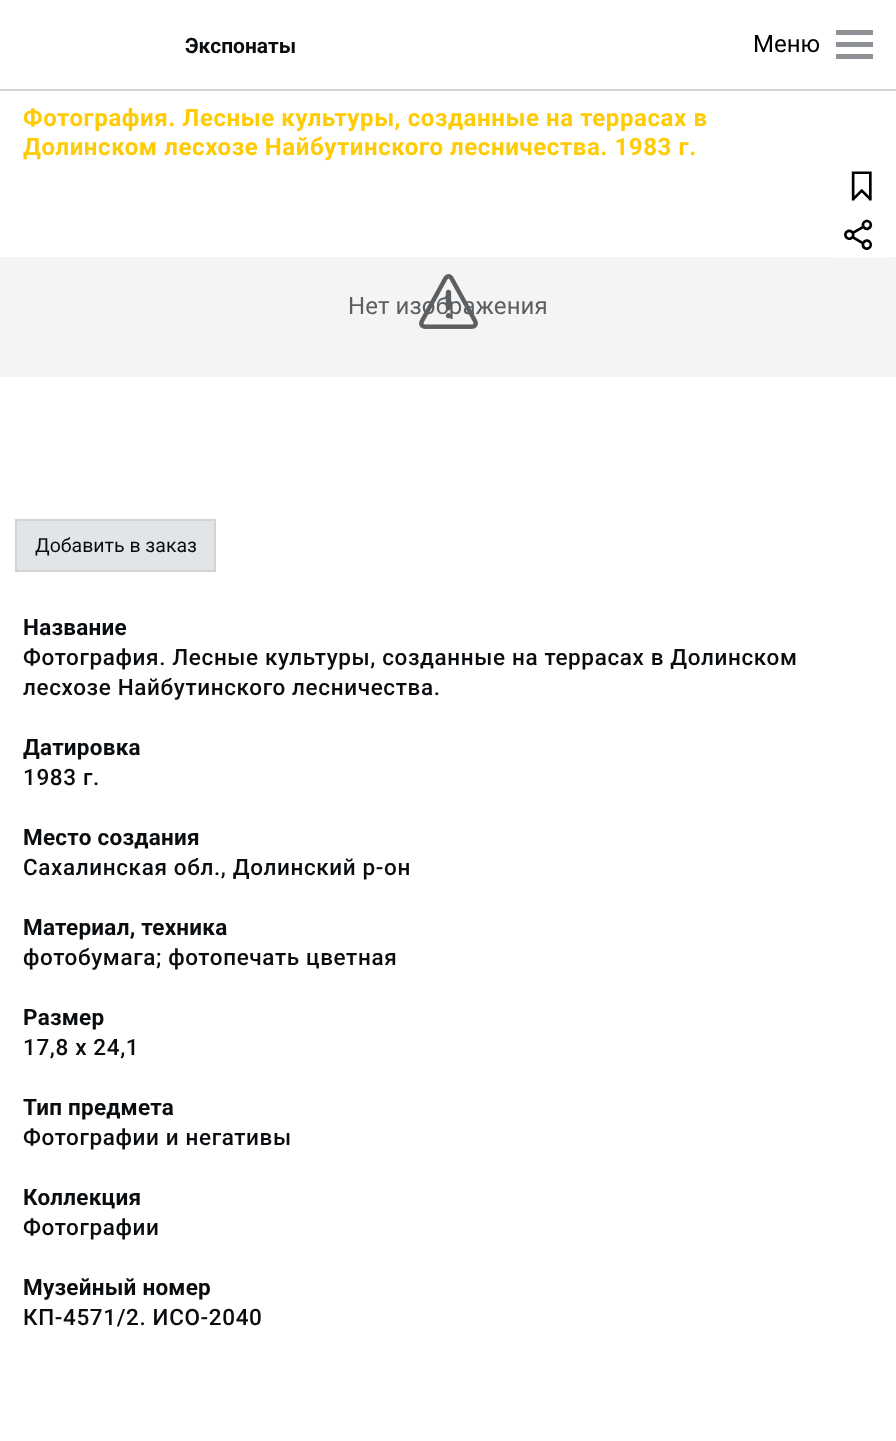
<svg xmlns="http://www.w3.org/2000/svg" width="896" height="1441">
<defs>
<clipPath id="clip1"><rect x="23" y="612" width="852" height="750"/></clipPath>
</defs>
<rect width="100%" height="100%" fill="#fff"/>
<rect y="89" width="896" height="2" fill="#d3d3d3"/>
<text x="185" y="53" style="font-family:Roboto;font-size:21px;font-weight:bold;fill:#0a0d10">Экспонаты</text>
<rect x="836" y="30" width="37" height="5" fill="#8e9195"/>
<text x="753" y="52" style="font-family:Roboto;font-size:24px;fill:#000">Меню</text>
<rect x="836" y="42" width="37" height="5" fill="#8e9195"/>
<rect x="836" y="54" width="37" height="5" fill="#8e9195"/>
<text x="23" y="126" style="font-family:Roboto;font-size:24px;font-weight:bold;letter-spacing:0.6px;fill:#ffcb04">Фотография. Лесные культуры, созданные на террасах в</text>
<text x="23" y="155" style="font-family:Roboto;font-size:24px;font-weight:bold;letter-spacing:0.6px;fill:#ffcb04">Долинском лесхозе Найбутинского лесничества. 1983 г.</text>
<rect y="257" width="896" height="120" fill="#f4f4f5"/>
<text x="348" y="314" style="font-family:Roboto;font-size:24px;letter-spacing:0.1px;fill:#5c5f62">Нет изображения</text>
<image x="419" y="274" width="59" height="55" href="media/1.png"/>
<rect x="16" y="520" width="199" height="51" fill="#e2e5e8" stroke="#d3d3d3" stroke-width="2"/>
<text x="35" y="552" style="font-family:Roboto;font-size:19.5px;fill:#0a0d10">Добавить в заказ</text>
<rect x="836" y="257" width="46" height="1" fill="#fff"/>
<image x="851" y="171" width="21" height="30" href="media/2.png"/>
<image x="844" y="219" width="29" height="31" href="media/3.png"/>
<text x="23" y="635" style="font-family:Roboto;font-size:22.5px;font-weight:bold;letter-spacing:0.25px;fill:#0a0d10">Название</text>
<text x="23" y="665" style="font-family:Roboto;font-size:22.5px;font-weight:500;letter-spacing:0.63px;fill:#0a0d10">Фотография. Лесные культуры, созданные на террасах в Долинском</text>
<text x="23" y="695" style="font-family:Roboto;font-size:22.5px;font-weight:500;letter-spacing:0.63px;fill:#0a0d10">лесхозе Найбутинского лесничества.</text>
<g clip-path="url(#clip1)">
<text x="23" y="755" style="font-family:Roboto;font-size:22.5px;font-weight:bold;letter-spacing:0.25px;fill:#0a0d10">Датировка</text>
</g>
<text x="23" y="785" style="font-family:Roboto;font-size:22.5px;font-weight:500;letter-spacing:0.63px;fill:#0a0d10">1983 г.</text>
<text x="23" y="845" style="font-family:Roboto;font-size:22.5px;font-weight:bold;letter-spacing:0.25px;fill:#0a0d10">Место создания</text>
<text x="23" y="875" style="font-family:Roboto;font-size:22.5px;font-weight:500;letter-spacing:0.63px;fill:#0a0d10">Сахалинская обл., Долинский р-он</text>
<text x="23" y="935" style="font-family:Roboto;font-size:22.5px;font-weight:bold;letter-spacing:0.25px;fill:#0a0d10">Материал, техника</text>
<text x="23" y="965" style="font-family:Roboto;font-size:22.5px;font-weight:500;letter-spacing:0.63px;fill:#0a0d10">фотобумага; фотопечать цветная</text>
<text x="23" y="1025" style="font-family:Roboto;font-size:22.5px;font-weight:bold;letter-spacing:0.25px;fill:#0a0d10">Размер</text>
<text x="23" y="1055" style="font-family:Roboto;font-size:22.5px;font-weight:500;letter-spacing:0.63px;fill:#0a0d10">17,8 х 24,1</text>
<text x="23" y="1115" style="font-family:Roboto;font-size:22.5px;font-weight:bold;letter-spacing:0.25px;fill:#0a0d10">Тип предмета</text>
<text x="23" y="1145" style="font-family:Roboto;font-size:22.5px;font-weight:500;letter-spacing:0.63px;fill:#0a0d10">Фотографии и негативы</text>
<text x="23" y="1205" style="font-family:Roboto;font-size:22.5px;font-weight:bold;letter-spacing:0.25px;fill:#0a0d10">Коллекция</text>
<text x="23" y="1235" style="font-family:Roboto;font-size:22.5px;font-weight:500;letter-spacing:0.63px;fill:#0a0d10">Фотографии</text>
<text x="23" y="1295" style="font-family:Roboto;font-size:22.5px;font-weight:bold;letter-spacing:0.25px;fill:#0a0d10">Музейный номер</text>
<text x="23" y="1325" style="font-family:Roboto;font-size:22.5px;font-weight:500;letter-spacing:0.63px;fill:#0a0d10">КП-4571/2. ИСО-2040</text>
</svg>
